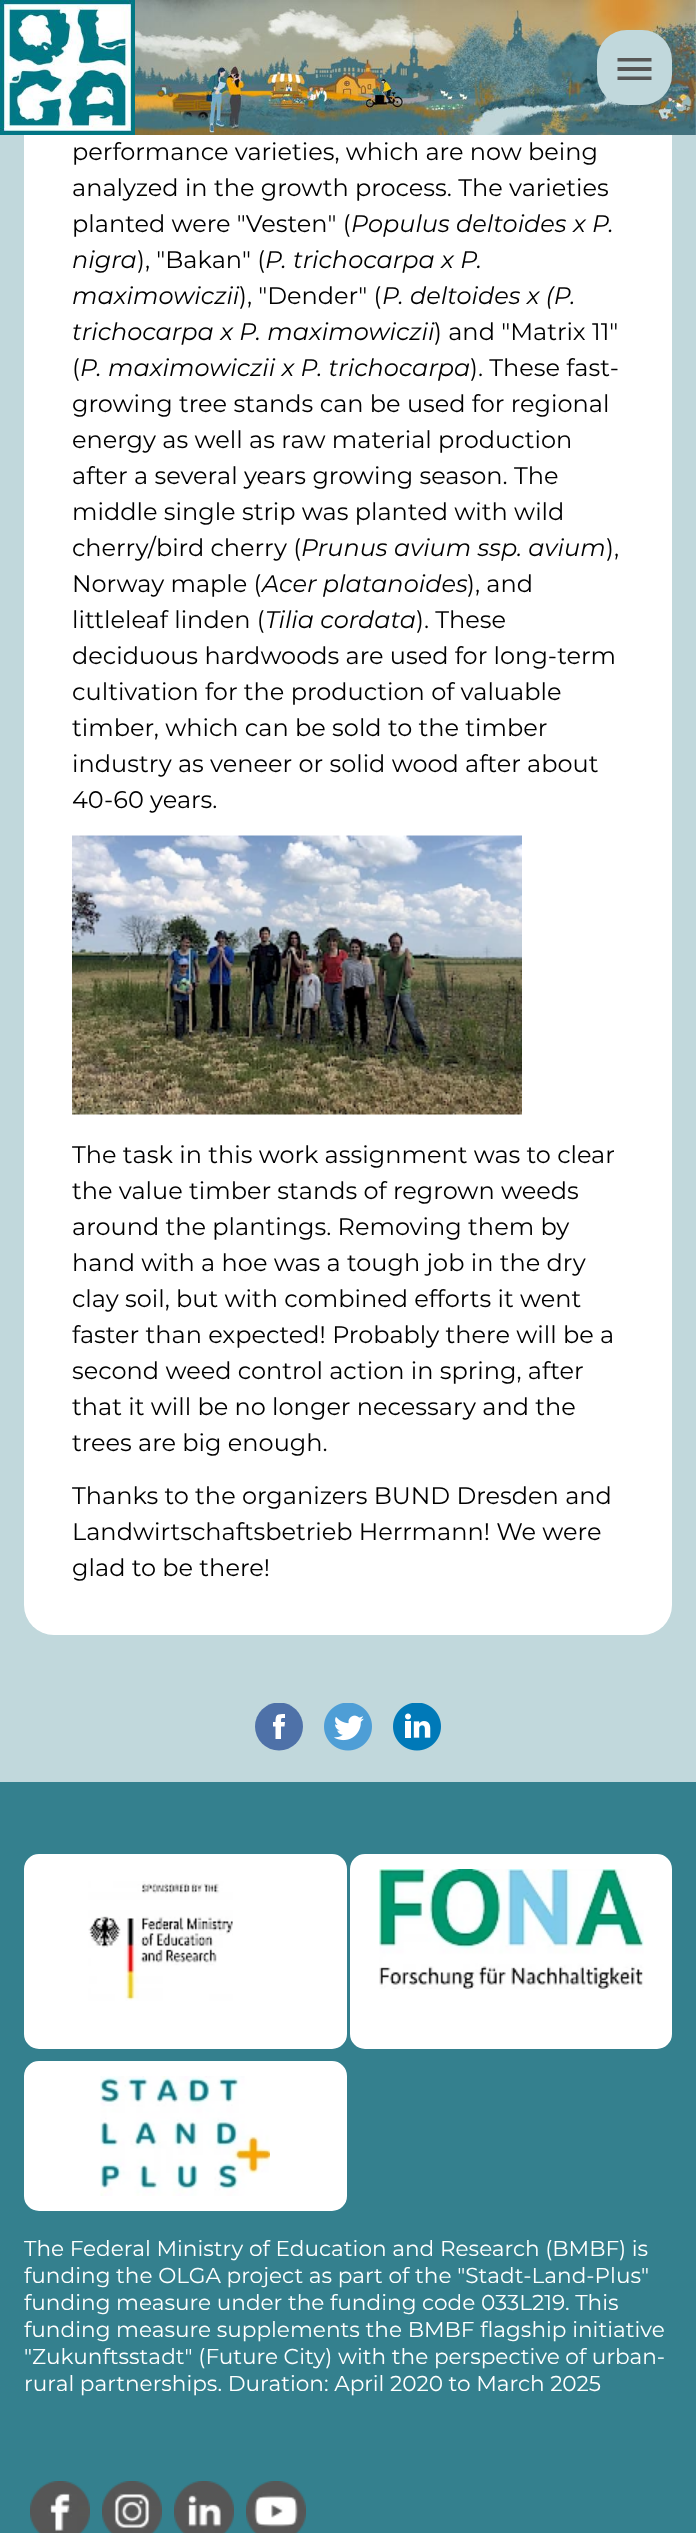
<svg xmlns="http://www.w3.org/2000/svg" width="696" height="2533">
<defs>
<clipPath id="clip1"><rect x="255" y="1703" width="48" height="48"/></clipPath>
</defs>
<rect width="100%" height="100%" fill="#c1d8dc"/>
<rect x="24" y="-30" width="648" height="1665" rx="30" fill="#fff"/>
<image x="135" y="0" width="561" height="135" href="media/1.png"/>
<image x="0" y="0" width="135" height="135" href="media/2.png"/>
<rect x="597" y="30" width="75" height="75" rx="30" fill="#c1d8dc"/>
<path d="M617.5 58h34v3.5h-34zm0 13v-4h34v4zm0 9v-3.5h34v3.5z" fill="#575756"/>
<text x="72" y="160" style="font-family:Montserrat;font-size:24px;fill:#000">performance varieties, which are now being</text>
<text x="72" y="196" style="font-family:Montserrat;font-size:24px;fill:#000">analyzed in the growth process. The varieties</text>
<text x="72" y="232" style="font-family:Montserrat;font-size:24px;fill:#000">planted were "Vesten" (</text>
<text x="351" y="232" style="font-family:Montserrat;font-size:24px;font-style:italic;fill:#000">Populus deltoides x P.</text>
<text x="72" y="268" style="font-family:Montserrat;font-size:24px;font-style:italic;fill:#000">nigra</text>
<text x="137" y="268" style="font-family:Montserrat;font-size:24px;fill:#000">), "Bakan" (</text>
<text x="265" y="268" style="font-family:Montserrat;font-size:24px;font-style:italic;fill:#000">P. trichocarpa x P.</text>
<text x="72" y="304" style="font-family:Montserrat;font-size:24px;font-style:italic;fill:#000">maximowiczii</text>
<text x="239" y="304" style="font-family:Montserrat;font-size:24px;fill:#000">), "Dender" (</text>
<text x="382" y="304" style="font-family:Montserrat;font-size:24px;font-style:italic;fill:#000">P. deltoides x (P.</text>
<text x="72" y="340" style="font-family:Montserrat;font-size:24px;font-style:italic;fill:#000">trichocarpa x P. maximowiczii</text>
<text x="434" y="340" style="font-family:Montserrat;font-size:24px;fill:#000">) and "Matrix 11"</text>
<text x="72" y="376" style="font-family:Montserrat;font-size:24px;fill:#000">(</text>
<text x="80" y="376" style="font-family:Montserrat;font-size:24px;font-style:italic;fill:#000">P. maximowiczii x P. trichocarpa</text>
<text x="470" y="376" style="font-family:Montserrat;font-size:24px;fill:#000">). These fast-</text>
<text x="72" y="412" style="font-family:Montserrat;font-size:24px;fill:#000">growing tree stands can be used for regional</text>
<text x="72" y="448" style="font-family:Montserrat;font-size:24px;fill:#000">energy as well as raw material production</text>
<text x="72" y="484" style="font-family:Montserrat;font-size:24px;fill:#000">after a several years growing season. The</text>
<text x="72" y="520" style="font-family:Montserrat;font-size:24px;fill:#000">middle single strip was planted with wild</text>
<text x="72" y="556" style="font-family:Montserrat;font-size:24px;fill:#000">cherry/bird cherry (</text>
<text x="301" y="556" style="font-family:Montserrat;font-size:24px;font-style:italic;fill:#000">Prunus avium ssp. avium</text>
<text x="606" y="556" style="font-family:Montserrat;font-size:24px;fill:#000">),</text>
<text x="72" y="592" style="font-family:Montserrat;font-size:24px;fill:#000">Norway maple (</text>
<text x="262" y="592" style="font-family:Montserrat;font-size:24px;font-style:italic;fill:#000">Acer platanoides</text>
<text x="467" y="592" style="font-family:Montserrat;font-size:24px;fill:#000">), and</text>
<text x="72" y="628" style="font-family:Montserrat;font-size:24px;fill:#000">littleleaf linden (</text>
<text x="265" y="628" style="font-family:Montserrat;font-size:24px;font-style:italic;fill:#000">Tilia cordata</text>
<text x="416" y="628" style="font-family:Montserrat;font-size:24px;fill:#000">). These</text>
<text x="72" y="664" style="font-family:Montserrat;font-size:24px;fill:#000">deciduous hardwoods are used for long-term</text>
<text x="72" y="700" style="font-family:Montserrat;font-size:24px;fill:#000">cultivation for the production of valuable</text>
<text x="72" y="736" style="font-family:Montserrat;font-size:24px;fill:#000">timber, which can be sold to the timber</text>
<text x="72" y="772" style="font-family:Montserrat;font-size:24px;fill:#000">industry as veneer or solid wood after about</text>
<text x="72" y="808" style="font-family:Montserrat;font-size:24px;fill:#000">40-60 years.</text>
<image x="72" y="835" width="450" height="280" href="media/3.png"/>
<text x="72" y="1163" style="font-family:Montserrat;font-size:24px;fill:#000">The task in this work assignment was to clear</text>
<text x="72" y="1199" style="font-family:Montserrat;font-size:24px;fill:#000">the value timber stands of regrown weeds</text>
<text x="72" y="1235" style="font-family:Montserrat;font-size:24px;fill:#000">around the plantings. Removing them by</text>
<text x="72" y="1271" style="font-family:Montserrat;font-size:24px;fill:#000">hand with a hoe was a tough job in the dry</text>
<text x="72" y="1307" style="font-family:Montserrat;font-size:24px;fill:#000">clay soil, but with combined efforts it went</text>
<text x="72" y="1343" style="font-family:Montserrat;font-size:24px;fill:#000">faster than expected! Probably there will be a</text>
<text x="72" y="1379" style="font-family:Montserrat;font-size:24px;fill:#000">second weed control action in spring, after</text>
<text x="72" y="1415" style="font-family:Montserrat;font-size:24px;fill:#000">that it will be no longer necessary and the</text>
<text x="72" y="1451" style="font-family:Montserrat;font-size:24px;fill:#000">trees are big enough.</text>
<text x="72" y="1504" style="font-family:Montserrat;font-size:24px;fill:#000">Thanks to the organizers BUND Dresden and</text>
<text x="72" y="1540" style="font-family:Montserrat;font-size:24px;fill:#000">Landwirtschaftsbetrieb Herrmann! We were</text>
<text x="72" y="1576" style="font-family:Montserrat;font-size:24px;fill:#000">glad to be there!</text>
<g clip-path="url(#clip1)">
<circle cx="279" cy="1726.5" r="24" fill="#4e71a8"/>
</g>
<path d="M285 1722h-4c0-4.5 0-4 4-4v-4c-8 0-9.5 0-9.5 8h-2.5v4.5h2.5v12.5h5.5v-12.5h3.5z" fill="#fff"/>
<image x="324" y="1703" width="48" height="48" href="media/4.png"/>
<image x="393" y="1703" width="48" height="48" href="media/5.png"/>
<rect y="1782" width="696" height="751" fill="#34808e"/>
<rect x="31.5" y="1861.5" width="308" height="180" rx="7.5" fill="#fff" stroke="#fff" stroke-width="15"/>
<image x="88" y="1881" width="145" height="120" href="media/6.png"/>
<rect x="357.5" y="1861.5" width="307" height="180" rx="7.5" fill="#fff" stroke="#fff" stroke-width="15"/>
<image x="379" y="1869" width="265" height="120" href="media/7.png"/>
<rect x="31.5" y="2068.5" width="308" height="135" rx="7.5" fill="#fff" stroke="#fff" stroke-width="15"/>
<image x="100" y="2076" width="170" height="120" href="media/8.png"/>
<text x="24" y="2256" style="font-family:Montserrat;font-size:21.6px;fill:#fff">The Federal Ministry of Education and Research (BMBF) is</text>
<text x="24" y="2283" style="font-family:Montserrat;font-size:21.6px;fill:#fff">funding the OLGA project as part of the "Stadt-Land-Plus"</text>
<text x="24" y="2310" style="font-family:Montserrat;font-size:21.6px;fill:#fff">funding measure under the funding code 033L219. This</text>
<text x="24" y="2337" style="font-family:Montserrat;font-size:21.6px;fill:#fff">funding measure supplements the BMBF flagship initiative</text>
<text x="24" y="2364" style="font-family:Montserrat;font-size:21.6px;fill:#fff">"Zukunftsstadt" (Future City) with the perspective of urban-</text>
<text x="24" y="2391" style="font-family:Montserrat;font-size:21.6px;fill:#fff">rural partnerships. Duration: April 2020 to March 2025</text>
<image x="30" y="2481" width="60" height="52" href="media/9.png"/>
<image x="102" y="2481" width="60" height="52" href="media/10.png"/>
<image x="174" y="2481" width="60" height="52" href="media/11.png"/>
<image x="246" y="2481" width="60" height="52" href="media/12.png"/>
</svg>
